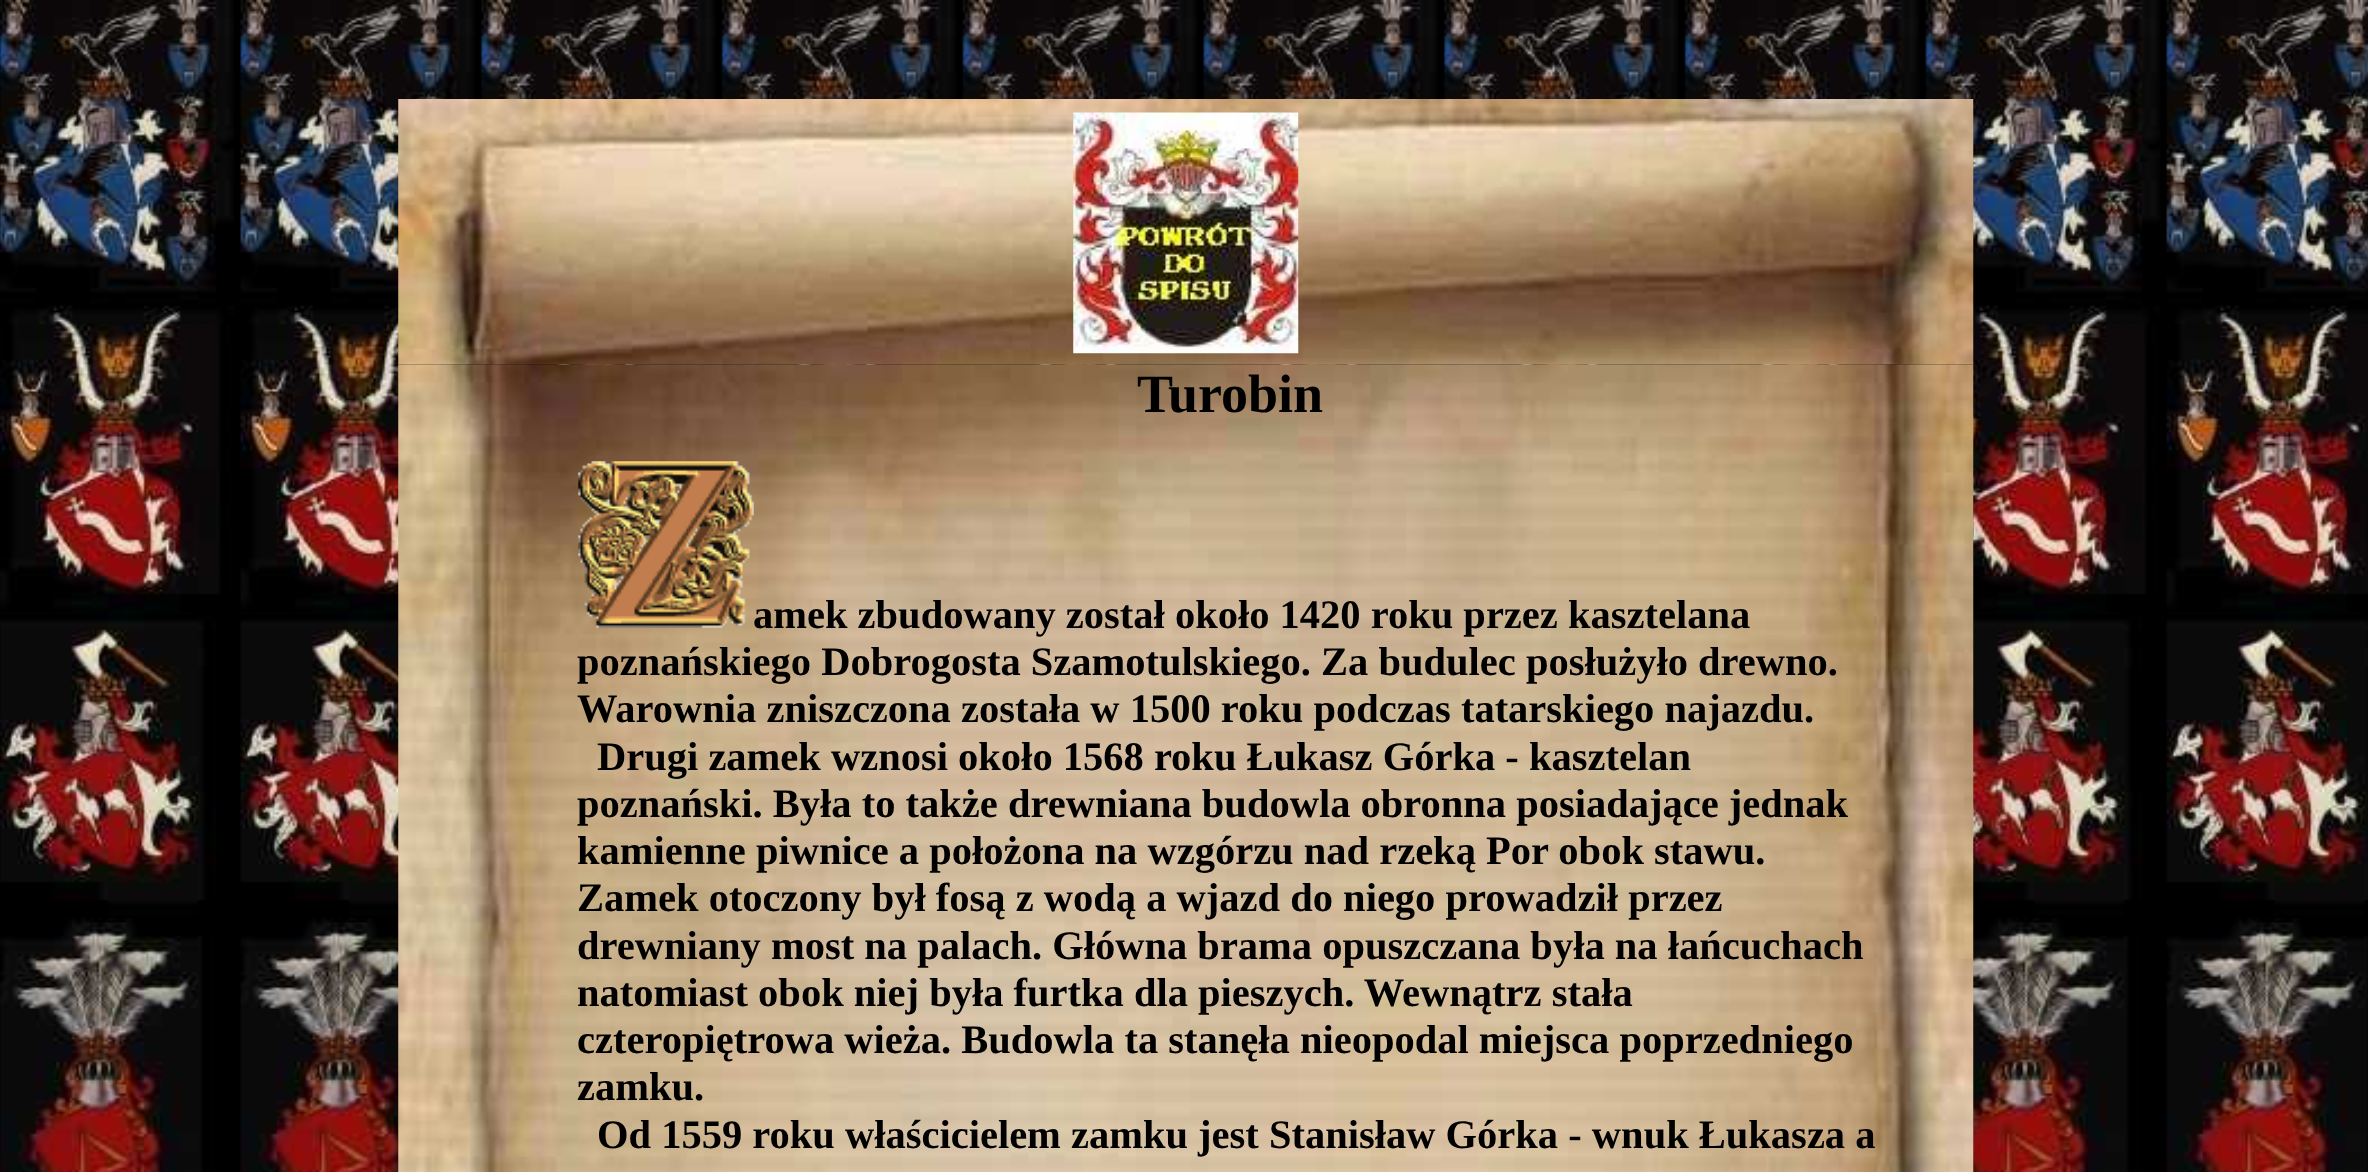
<svg xmlns="http://www.w3.org/2000/svg" width="2368" height="1172">
<rect width="100%" height="100%" fill="#fff"/>
<image x="0" y="0" width="2368" height="1172" href="media/1.png"/>
<image x="398" y="99" width="1576" height="266" href="media/2.png"/>
<image x="1073" y="112" width="226" height="242" href="media/3.png"/>
<image x="398" y="364" width="1576" height="808" href="media/4.png"/>
<text x="1137" y="412" style="font-family:Liberation Serif;font-size:54px;font-weight:bold;fill:#000">Turobin</text>
<image x="578" y="461" width="176" height="167" href="media/5.png"/>
<text x="753" y="628" style="font-family:Liberation Serif;font-size:40.5px;font-weight:bold;fill:#000">amek zbudowany został około 1420 roku przez kasztelana</text>
<text x="577" y="675" style="font-family:Liberation Serif;font-size:40.5px;font-weight:bold;fill:#000">poznańskiego Dobrogosta Szamotulskiego. Za budulec posłużyło drewno.</text>
<text x="577" y="722" style="font-family:Liberation Serif;font-size:40.5px;font-weight:bold;fill:#000">Warownia zniszczona została w 1500 roku podczas tatarskiego najazdu.</text>
<text x="597" y="770" style="font-family:Liberation Serif;font-size:40.5px;font-weight:bold;fill:#000">Drugi zamek wznosi około 1568 roku Łukasz Górka - kasztelan</text>
<text x="577" y="817" style="font-family:Liberation Serif;font-size:40.5px;font-weight:bold;fill:#000">poznański. Była to także drewniana budowla obronna posiadające jednak</text>
<text x="577" y="864" style="font-family:Liberation Serif;font-size:40.5px;font-weight:bold;fill:#000">kamienne piwnice a położona na wzgórzu nad rzeką Por obok stawu.</text>
<text x="577" y="911" style="font-family:Liberation Serif;font-size:40.5px;font-weight:bold;fill:#000">Zamek otoczony był fosą z wodą a wjazd do niego prowadził przez</text>
<text x="577" y="959" style="font-family:Liberation Serif;font-size:40.5px;font-weight:bold;fill:#000">drewniany most na palach. Główna brama opuszczana była na łańcuchach</text>
<text x="577" y="1006" style="font-family:Liberation Serif;font-size:40.5px;font-weight:bold;fill:#000">natomiast obok niej była furtka dla pieszych. Wewnątrz stała</text>
<text x="577" y="1053" style="font-family:Liberation Serif;font-size:40.5px;font-weight:bold;fill:#000">czteropiętrowa wieża. Budowla ta stanęła nieopodal miejsca poprzedniego</text>
<text x="577" y="1100" style="font-family:Liberation Serif;font-size:40.5px;font-weight:bold;fill:#000">zamku.</text>
<text x="597" y="1148" style="font-family:Liberation Serif;font-size:40.5px;font-weight:bold;fill:#000">Od 1559 roku właścicielem zamku jest Stanisław Górka - wnuk Łukasza a</text>
</svg>
